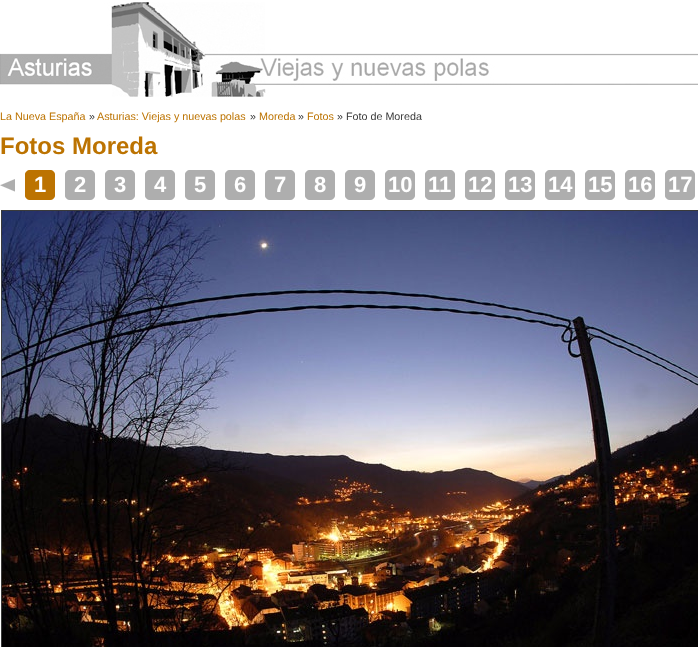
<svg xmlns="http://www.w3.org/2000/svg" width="698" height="647">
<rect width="100%" height="100%" fill="#fff"/>
<image x="0" y="2" width="698" height="95" href="media/1.png"/>
<text x="0" y="120" style="font-family:Liberation Sans;font-size:10.75px;fill:#bc7301">La Nueva España</text>
<text x="89" y="120" style="font-family:Liberation Sans;font-size:10.75px;fill:#3a3a3a">»</text>
<text x="97" y="120" style="font-family:Liberation Sans;font-size:10.75px;fill:#bc7301">Asturias: Viejas y nuevas polas</text>
<text x="250" y="120" style="font-family:Liberation Sans;font-size:10.75px;fill:#3a3a3a">»</text>
<text x="259" y="120" style="font-family:Liberation Sans;font-size:10.75px;fill:#bc7301">Moreda</text>
<text x="298" y="120" style="font-family:Liberation Sans;font-size:10.75px;fill:#3a3a3a">»</text>
<text x="307" y="120" style="font-family:Liberation Sans;font-size:10.75px;fill:#bc7301">Fotos</text>
<text x="337" y="120" style="font-family:Liberation Sans;font-size:10.75px;fill:#3a3a3a">» Foto de Moreda</text>
<text x="0" y="154" style="font-family:Liberation Sans;font-size:24px;font-weight:bold;fill:#bc7301">Fotos Moreda</text>
<rect y="179" width="15" height="13" fill="#aeaeae"/>
<image x="0" y="170" width="15" height="30" href="media/2.png"/>
<rect x="25" y="170" width="30" height="30" fill="#bc7301"/>
<image x="25" y="170" width="30" height="30" href="media/3.png"/>
<text x="34" y="192" style="font-family:Liberation Sans;font-size:22px;font-weight:bold;fill:#fff">1</text>
<rect x="65" y="170" width="30" height="30" fill="#aeaeae"/>
<image x="65" y="170" width="30" height="30" href="media/4.png"/>
<text x="74" y="192" style="font-family:Liberation Sans;font-size:22px;font-weight:bold;fill:#fff">2</text>
<rect x="105" y="170" width="30" height="30" fill="#aeaeae"/>
<image x="105" y="170" width="30" height="30" href="media/4.png"/>
<text x="114" y="192" style="font-family:Liberation Sans;font-size:22px;font-weight:bold;fill:#fff">3</text>
<rect x="145" y="170" width="30" height="30" fill="#aeaeae"/>
<image x="145" y="170" width="30" height="30" href="media/4.png"/>
<text x="154" y="192" style="font-family:Liberation Sans;font-size:22px;font-weight:bold;fill:#fff">4</text>
<rect x="185" y="170" width="30" height="30" fill="#aeaeae"/>
<image x="185" y="170" width="30" height="30" href="media/4.png"/>
<text x="194" y="192" style="font-family:Liberation Sans;font-size:22px;font-weight:bold;fill:#fff">5</text>
<rect x="225" y="170" width="30" height="30" fill="#aeaeae"/>
<image x="225" y="170" width="30" height="30" href="media/4.png"/>
<text x="234" y="192" style="font-family:Liberation Sans;font-size:22px;font-weight:bold;fill:#fff">6</text>
<rect x="265" y="170" width="30" height="30" fill="#aeaeae"/>
<image x="265" y="170" width="30" height="30" href="media/4.png"/>
<text x="274" y="192" style="font-family:Liberation Sans;font-size:22px;font-weight:bold;fill:#fff">7</text>
<rect x="305" y="170" width="30" height="30" fill="#aeaeae"/>
<image x="305" y="170" width="30" height="30" href="media/4.png"/>
<text x="314" y="192" style="font-family:Liberation Sans;font-size:22px;font-weight:bold;fill:#fff">8</text>
<rect x="345" y="170" width="30" height="30" fill="#aeaeae"/>
<image x="345" y="170" width="30" height="30" href="media/4.png"/>
<text x="354" y="192" style="font-family:Liberation Sans;font-size:22px;font-weight:bold;fill:#fff">9</text>
<rect x="385" y="170" width="30" height="30" fill="#aeaeae"/>
<image x="385" y="170" width="30" height="30" href="media/4.png"/>
<text x="388" y="192" style="font-family:Liberation Sans;font-size:22px;font-weight:bold;fill:#fff">10</text>
<rect x="425" y="170" width="30" height="30" fill="#aeaeae"/>
<image x="425" y="170" width="30" height="30" href="media/4.png"/>
<text x="428" y="192" style="font-family:Liberation Sans;font-size:22px;font-weight:bold;fill:#fff">11</text>
<rect x="465" y="170" width="30" height="30" fill="#aeaeae"/>
<image x="465" y="170" width="30" height="30" href="media/4.png"/>
<text x="468" y="192" style="font-family:Liberation Sans;font-size:22px;font-weight:bold;fill:#fff">12</text>
<rect x="505" y="170" width="30" height="30" fill="#aeaeae"/>
<image x="505" y="170" width="30" height="30" href="media/4.png"/>
<text x="508" y="192" style="font-family:Liberation Sans;font-size:22px;font-weight:bold;fill:#fff">13</text>
<rect x="545" y="170" width="30" height="30" fill="#aeaeae"/>
<image x="545" y="170" width="30" height="30" href="media/4.png"/>
<text x="548" y="192" style="font-family:Liberation Sans;font-size:22px;font-weight:bold;fill:#fff">14</text>
<rect x="585" y="170" width="30" height="30" fill="#aeaeae"/>
<image x="585" y="170" width="30" height="30" href="media/4.png"/>
<text x="588" y="192" style="font-family:Liberation Sans;font-size:22px;font-weight:bold;fill:#fff">15</text>
<rect x="625" y="170" width="30" height="30" fill="#aeaeae"/>
<image x="625" y="170" width="30" height="30" href="media/4.png"/>
<text x="628" y="192" style="font-family:Liberation Sans;font-size:22px;font-weight:bold;fill:#fff">16</text>
<rect x="665" y="170" width="30" height="30" fill="#aeaeae"/>
<image x="665" y="170" width="30" height="30" href="media/4.png"/>
<text x="668" y="192" style="font-family:Liberation Sans;font-size:22px;font-weight:bold;fill:#fff">17</text>
<rect x="1.5" y="210.5" width="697" height="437" fill="none" stroke="#3a3a3a"/>
<image x="2" y="211" width="696" height="436" href="media/5.png"/>
</svg>
